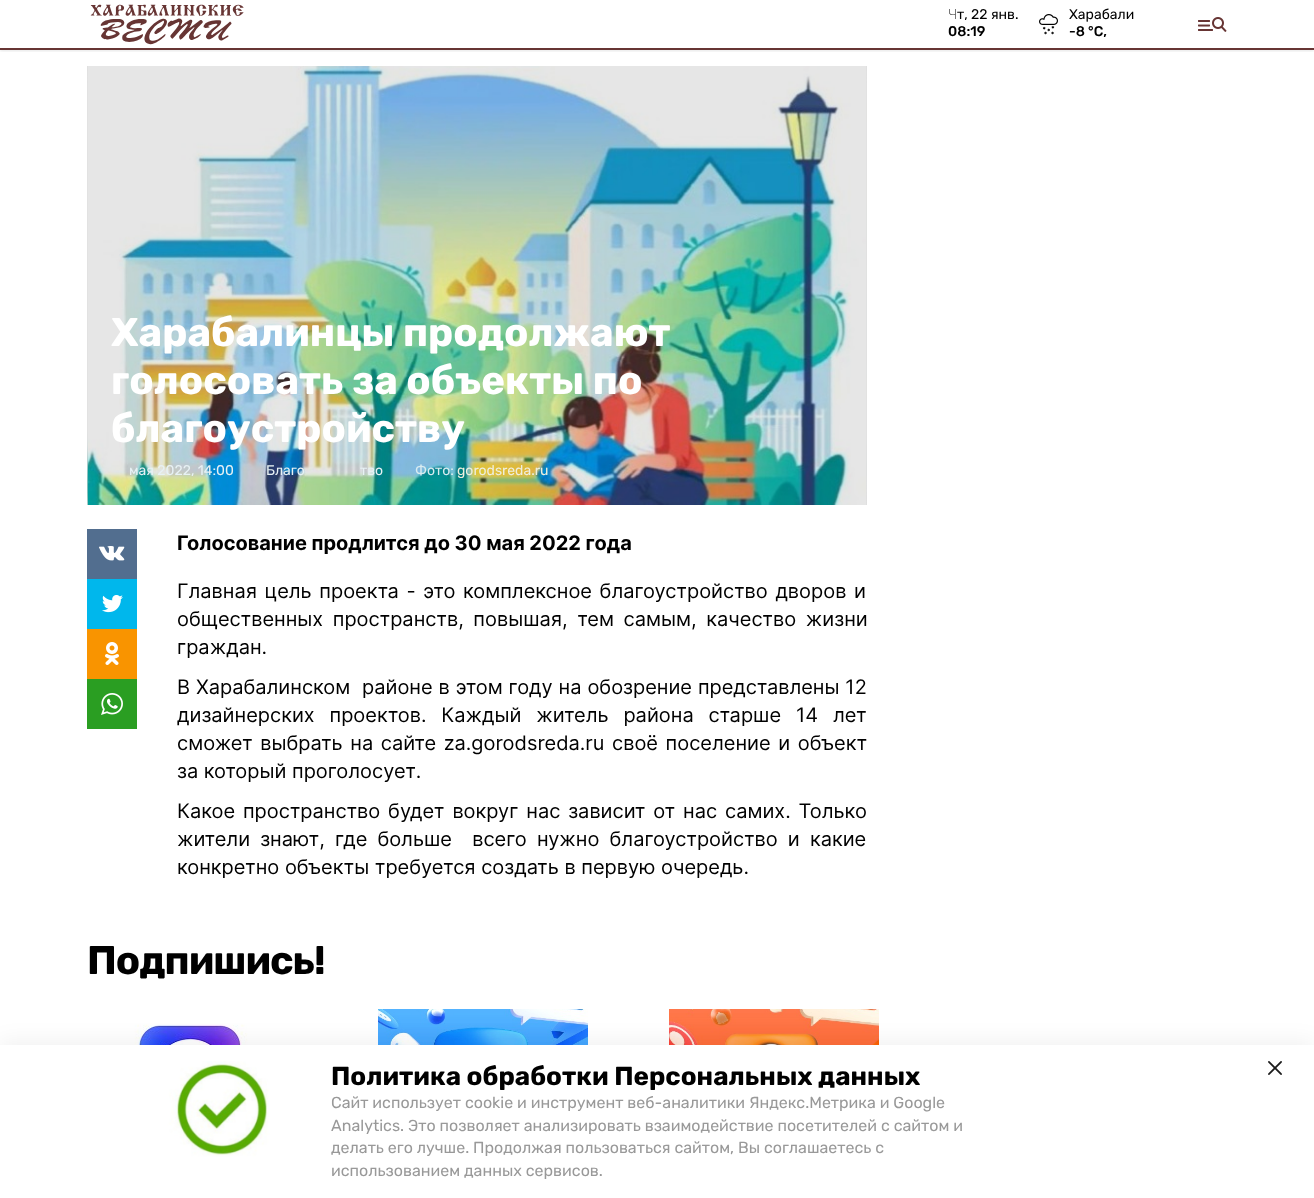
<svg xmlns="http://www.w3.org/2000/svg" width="1314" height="1198">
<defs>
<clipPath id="clip1"><rect x="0" y="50" width="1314" height="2"/></clipPath>
</defs>
<rect width="100%" height="100%" fill="#fff"/>
<g clip-path="url(#clip1)">
<rect y="1" width="1314" height="50" fill="#0000001a" filter="blur(1.5px)"/>
</g>
<rect y="48" width="1314" height="2" fill="#673534"/>
<image x="90" y="4" width="154" height="41" href="media/1.png"/>
<text x="948" y="19" style="font-family:Noto Sans;font-size:14px;font-weight:200;fill:#000">Ч</text>
<text x="957" y="19" style="font-family:Rubik;font-size:14px;fill:#000">т, 22 янв.</text>
<text x="948" y="36" style="font-family:Rubik;font-size:14px;font-weight:500;fill:#000">08:19</text>
<image x="1039" y="14" width="19" height="21" href="media/2.png"/>
<text x="1069" y="19" style="font-family:Rubik;font-size:14px;fill:#000">Харабали</text>
<text x="1069" y="36" style="font-family:Rubik;font-size:14px;font-weight:500;fill:#000">-8 °С,</text>
<image x="1198" y="17" width="29" height="15" href="media/3.png"/>
<rect x="87" y="66" width="780" height="439" fill="#dedede"/>
<image x="87" y="66" width="780" height="439" href="media/4.png"/>
<image x="88" y="66" width="778" height="439" href="media/5.png"/>
<text x="111" y="346" style="font-family:Rubik;font-size:40px;font-weight:bold;fill:#fff">Харабалинцы продолжают</text>
<text x="111" y="394" style="font-family:Rubik;font-size:40px;font-weight:bold;fill:#fff">голосовать за объекты по</text>
<text x="111" y="442" style="font-family:Rubik;font-size:40px;font-weight:bold;fill:#fff">благоустройству</text>
<text x="129" y="475" style="font-family:Rubik;font-size:14px;fill:#e7f1f4">мая 2022, 14:00</text>
<text x="266" y="475" style="font-family:Rubik;font-size:14px;fill:#e7f1f4">Благо</text>
<text x="360" y="475" style="font-family:Rubik;font-size:14px;fill:#e7f1f4">тво</text>
<text x="415" y="475" style="font-family:Rubik;font-size:14px;fill:#d9ecf0">Фото:</text>
<text x="457" y="475" style="font-family:Rubik;font-size:14px;fill:#eeefde">gorodsreda.ru</text>
<rect x="87" y="529" width="50" height="50" fill="#526e8f"/>
<image x="99" y="546" width="26" height="15" href="media/6.png"/>
<rect x="87" y="579" width="50" height="50" fill="#00b7ec"/>
<image x="102" y="595" width="21" height="18" href="media/7.png"/>
<rect x="87" y="629" width="50" height="50" fill="#f99400"/>
<image x="105" y="642" width="14" height="23" href="media/8.png"/>
<rect x="87" y="679" width="50" height="50" fill="#2a9e22"/>
<image x="101" y="693" width="22" height="22" href="media/9.png"/>
<text x="177" y="550" style="font-family:Inter;font-size:20px;font-weight:bold;fill:#000">Голосование продлится до 30 мая 2022 года</text>
<text x="177" y="598" word-spacing="2" style="font-family:Inter;font-size:20px;fill:#000">Главная цель проекта - это комплексное благоустройство дворов и</text>
<text x="177" y="626" word-spacing="4" style="font-family:Inter;font-size:20px;fill:#000">общественных пространств, повышая, тем самым, качество жизни</text>
<text x="177" y="654" style="font-family:Inter;font-size:20px;fill:#000">граждан.</text>
<text x="177" y="694" word-spacing="0.25" style="font-family:Inter;font-size:20px;fill:#000" xml:space="preserve">В Харабалинском  районе в этом году на обозрение представлены 12</text>
<text x="177" y="722" word-spacing="9.25" style="font-family:Inter;font-size:20px;fill:#000">дизайнерских проектов. Каждый житель района старше 14 лет</text>
<text x="177" y="750" word-spacing="2" style="font-family:Inter;font-size:20px;fill:#000">сможет выбрать на сайте za.gorodsreda.ru своё поселение и объект</text>
<text x="177" y="778" style="font-family:Inter;font-size:20px;fill:#000">за который проголосует.</text>
<text x="177" y="818" word-spacing="2.25" style="font-family:Inter;font-size:20px;fill:#000">Какое пространство будет вокруг нас зависит от нас самих. Только</text>
<text x="177" y="846" word-spacing="4.5" style="font-family:Inter;font-size:20px;fill:#000" xml:space="preserve">жители знают, где больше  всего нужно благоустройство и какие</text>
<text x="177" y="874" style="font-family:Inter;font-size:20px;fill:#000">конкретно объекты требуется создать в первую очередь.</text>
<text x="87" y="974" style="font-family:Rubik;font-size:40px;font-weight:bold;letter-spacing:-1px;fill:#000">Подпишись!</text>
<image x="87" y="1009" width="210" height="36" href="media/10.png"/>
<image x="378" y="1009" width="210" height="36" href="media/11.png"/>
<image x="669" y="1009" width="210" height="36" href="media/12.png"/>
<rect y="1040" width="1314" height="153" fill="#0000000d" filter="blur(10px)"/>
<rect y="1045" width="1314" height="153" fill="#fff"/>
<image x="137" y="1061" width="170" height="96" href="media/13.png"/>
<text x="331" y="1085" style="font-family:Rubik;font-size:26px;font-weight:bold;fill:#000">Политика обработки Персональных данных</text>
<text x="331" y="1108" style="font-family:Rubik;font-size:16px;fill:#999">Сайт использует cookie и инструмент веб-аналитики Яндекс.Метрика и Google</text>
<text x="331" y="1131" style="font-family:Rubik;font-size:16px;fill:#999">Analytics. Это позволяет анализировать взаимодействие посетителей с сайтом и</text>
<text x="331" y="1153" style="font-family:Rubik;font-size:16px;fill:#999">делать его лучше. Продолжая пользоваться сайтом, Вы соглашаетесь с</text>
<text x="331" y="1176" style="font-family:Rubik;font-size:16px;fill:#999">использованием данных сервисов.</text>
<image x="1268" y="1061" width="14" height="14" href="media/14.png"/>
</svg>
